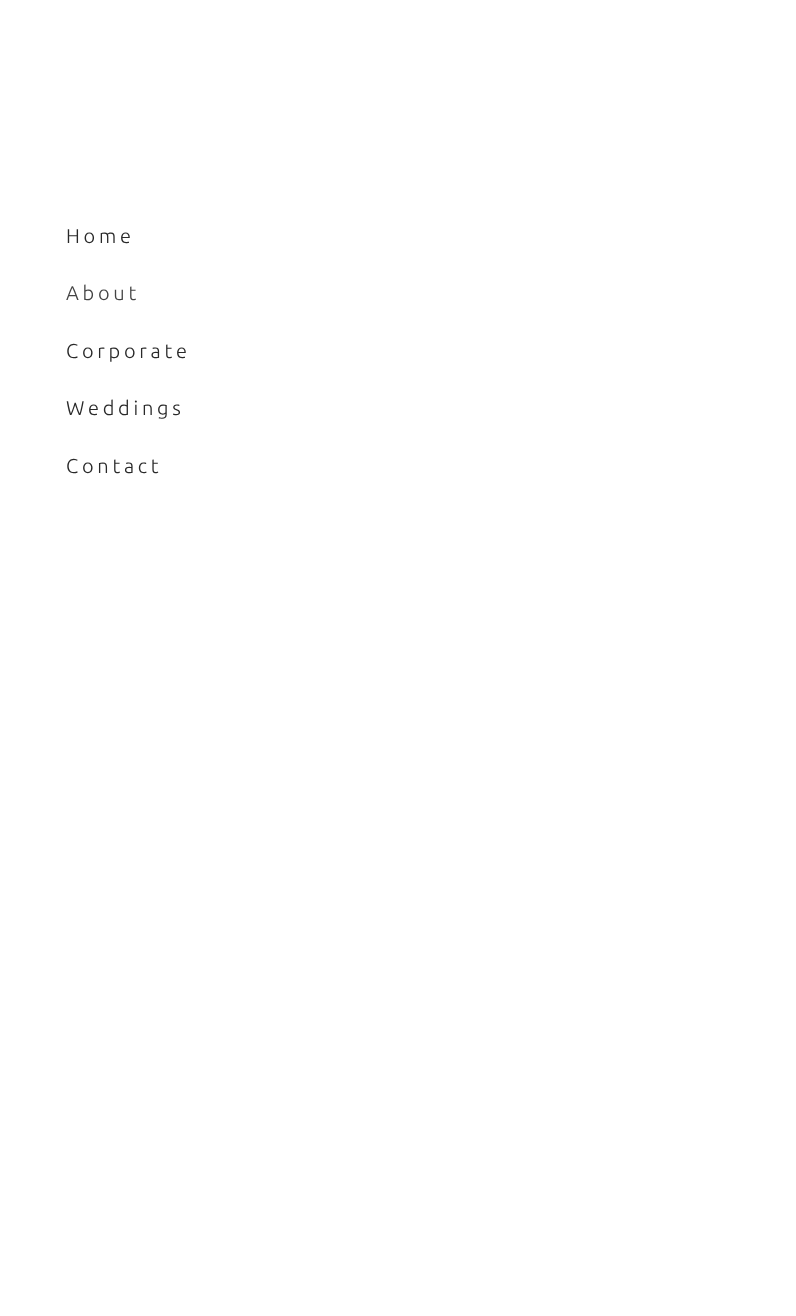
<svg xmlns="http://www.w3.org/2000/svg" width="796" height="1316">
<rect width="100%" height="100%" fill="#fff"/>
<text x="66" y="243" style="font-family:Ubuntu;font-size:20px;font-weight:300;letter-spacing:3.75px;fill:#292929">Home</text>
<text x="66" y="300" style="font-family:Ubuntu;font-size:20px;font-weight:300;letter-spacing:3.75px;fill:#444">About</text>
<text x="66" y="358" style="font-family:Ubuntu;font-size:20px;font-weight:300;letter-spacing:3.75px;fill:#292929">Corporate</text>
<text x="66" y="415" style="font-family:Ubuntu;font-size:20px;font-weight:300;letter-spacing:3.75px;fill:#292929">Weddings</text>
<text x="66" y="473" style="font-family:Ubuntu;font-size:20px;font-weight:300;letter-spacing:3.75px;fill:#292929">Contact</text>
</svg>
